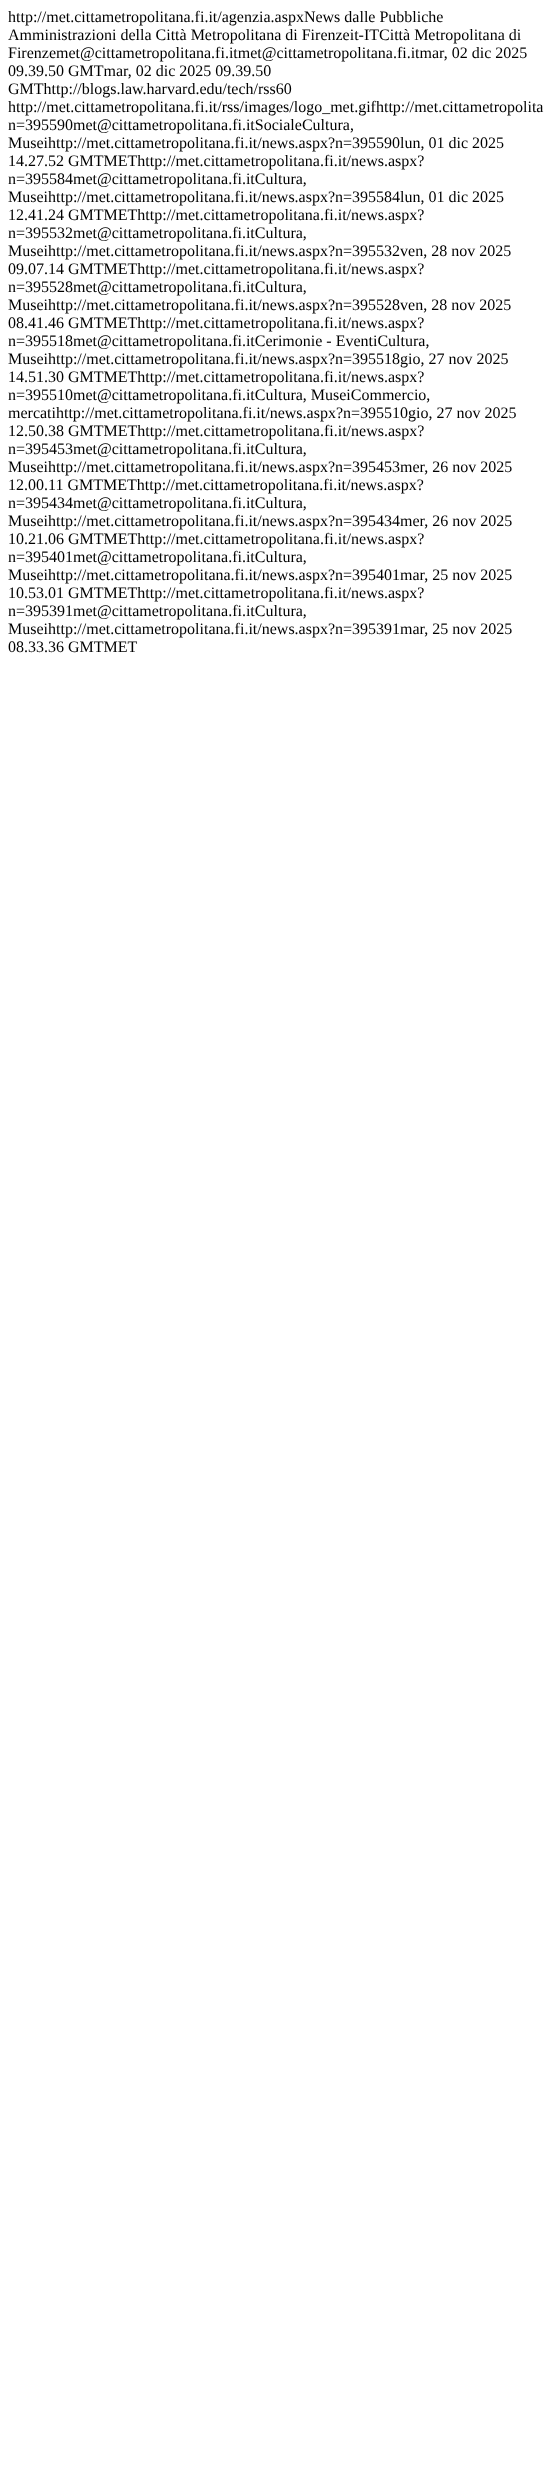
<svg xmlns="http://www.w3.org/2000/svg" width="545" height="2479">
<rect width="100%" height="100%" fill="#fff"/>
<text x="8" y="22" style="font-family:Liberation Serif;font-size:16px;fill:#000">http://met.cittametropolitana.fi.it/agenzia.aspxNews dalle Pubbliche</text>
<text x="8" y="40" style="font-family:Liberation Serif;font-size:16px;fill:#000">Amministrazioni della Città Metropolitana di Firenzeit-ITCittà Metropolitana di</text>
<text x="8" y="58" style="font-family:Liberation Serif;font-size:16px;fill:#000">Firenzemet@cittametropolitana.fi.itmet@cittametropolitana.fi.itmar, 02 dic 2025</text>
<text x="8" y="76" style="font-family:Liberation Serif;font-size:16px;fill:#000">09.39.50 GMTmar, 02 dic 2025 09.39.50</text>
<text x="8" y="94" style="font-family:Liberation Serif;font-size:16px;fill:#000">GMThttp://blogs.law.harvard.edu/tech/rss60</text>
<text x="8" y="112" style="font-family:Liberation Serif;font-size:16px;fill:#000">http://met.cittametropolitana.fi.it/rss/images/logo_met.gifhttp://met.cittametropolita</text>
<text x="8" y="130" style="font-family:Liberation Serif;font-size:16px;fill:#000">n=395590met@cittametropolitana.fi.itSocialeCultura,</text>
<text x="8" y="148" style="font-family:Liberation Serif;font-size:16px;fill:#000">Museihttp://met.cittametropolitana.fi.it/news.aspx?n=395590lun, 01 dic 2025</text>
<text x="8" y="166" style="font-family:Liberation Serif;font-size:16px;fill:#000">14.27.52 GMTMEThttp://met.cittametropolitana.fi.it/news.aspx?</text>
<text x="8" y="184" style="font-family:Liberation Serif;font-size:16px;fill:#000">n=395584met@cittametropolitana.fi.itCultura,</text>
<text x="8" y="202" style="font-family:Liberation Serif;font-size:16px;fill:#000">Museihttp://met.cittametropolitana.fi.it/news.aspx?n=395584lun, 01 dic 2025</text>
<text x="8" y="220" style="font-family:Liberation Serif;font-size:16px;fill:#000">12.41.24 GMTMEThttp://met.cittametropolitana.fi.it/news.aspx?</text>
<text x="8" y="238" style="font-family:Liberation Serif;font-size:16px;fill:#000">n=395532met@cittametropolitana.fi.itCultura,</text>
<text x="8" y="256" style="font-family:Liberation Serif;font-size:16px;fill:#000">Museihttp://met.cittametropolitana.fi.it/news.aspx?n=395532ven, 28 nov 2025</text>
<text x="8" y="274" style="font-family:Liberation Serif;font-size:16px;fill:#000">09.07.14 GMTMEThttp://met.cittametropolitana.fi.it/news.aspx?</text>
<text x="8" y="292" style="font-family:Liberation Serif;font-size:16px;fill:#000">n=395528met@cittametropolitana.fi.itCultura,</text>
<text x="8" y="310" style="font-family:Liberation Serif;font-size:16px;fill:#000">Museihttp://met.cittametropolitana.fi.it/news.aspx?n=395528ven, 28 nov 2025</text>
<text x="8" y="328" style="font-family:Liberation Serif;font-size:16px;fill:#000">08.41.46 GMTMEThttp://met.cittametropolitana.fi.it/news.aspx?</text>
<text x="8" y="346" style="font-family:Liberation Serif;font-size:16px;fill:#000">n=395518met@cittametropolitana.fi.itCerimonie - EventiCultura,</text>
<text x="8" y="364" style="font-family:Liberation Serif;font-size:16px;fill:#000">Museihttp://met.cittametropolitana.fi.it/news.aspx?n=395518gio, 27 nov 2025</text>
<text x="8" y="382" style="font-family:Liberation Serif;font-size:16px;fill:#000">14.51.30 GMTMEThttp://met.cittametropolitana.fi.it/news.aspx?</text>
<text x="8" y="400" style="font-family:Liberation Serif;font-size:16px;fill:#000">n=395510met@cittametropolitana.fi.itCultura, MuseiCommercio,</text>
<text x="8" y="418" style="font-family:Liberation Serif;font-size:16px;fill:#000">mercatihttp://met.cittametropolitana.fi.it/news.aspx?n=395510gio, 27 nov 2025</text>
<text x="8" y="436" style="font-family:Liberation Serif;font-size:16px;fill:#000">12.50.38 GMTMEThttp://met.cittametropolitana.fi.it/news.aspx?</text>
<text x="8" y="454" style="font-family:Liberation Serif;font-size:16px;fill:#000">n=395453met@cittametropolitana.fi.itCultura,</text>
<text x="8" y="472" style="font-family:Liberation Serif;font-size:16px;fill:#000">Museihttp://met.cittametropolitana.fi.it/news.aspx?n=395453mer, 26 nov 2025</text>
<text x="8" y="490" style="font-family:Liberation Serif;font-size:16px;fill:#000">12.00.11 GMTMEThttp://met.cittametropolitana.fi.it/news.aspx?</text>
<text x="8" y="508" style="font-family:Liberation Serif;font-size:16px;fill:#000">n=395434met@cittametropolitana.fi.itCultura,</text>
<text x="8" y="526" style="font-family:Liberation Serif;font-size:16px;fill:#000">Museihttp://met.cittametropolitana.fi.it/news.aspx?n=395434mer, 26 nov 2025</text>
<text x="8" y="544" style="font-family:Liberation Serif;font-size:16px;fill:#000">10.21.06 GMTMEThttp://met.cittametropolitana.fi.it/news.aspx?</text>
<text x="8" y="562" style="font-family:Liberation Serif;font-size:16px;fill:#000">n=395401met@cittametropolitana.fi.itCultura,</text>
<text x="8" y="580" style="font-family:Liberation Serif;font-size:16px;fill:#000">Museihttp://met.cittametropolitana.fi.it/news.aspx?n=395401mar, 25 nov 2025</text>
<text x="8" y="598" style="font-family:Liberation Serif;font-size:16px;fill:#000">10.53.01 GMTMEThttp://met.cittametropolitana.fi.it/news.aspx?</text>
<text x="8" y="616" style="font-family:Liberation Serif;font-size:16px;fill:#000">n=395391met@cittametropolitana.fi.itCultura,</text>
<text x="8" y="634" style="font-family:Liberation Serif;font-size:16px;fill:#000">Museihttp://met.cittametropolitana.fi.it/news.aspx?n=395391mar, 25 nov 2025</text>
<text x="8" y="652" style="font-family:Liberation Serif;font-size:16px;fill:#000">08.33.36 GMTMET</text>
</svg>
